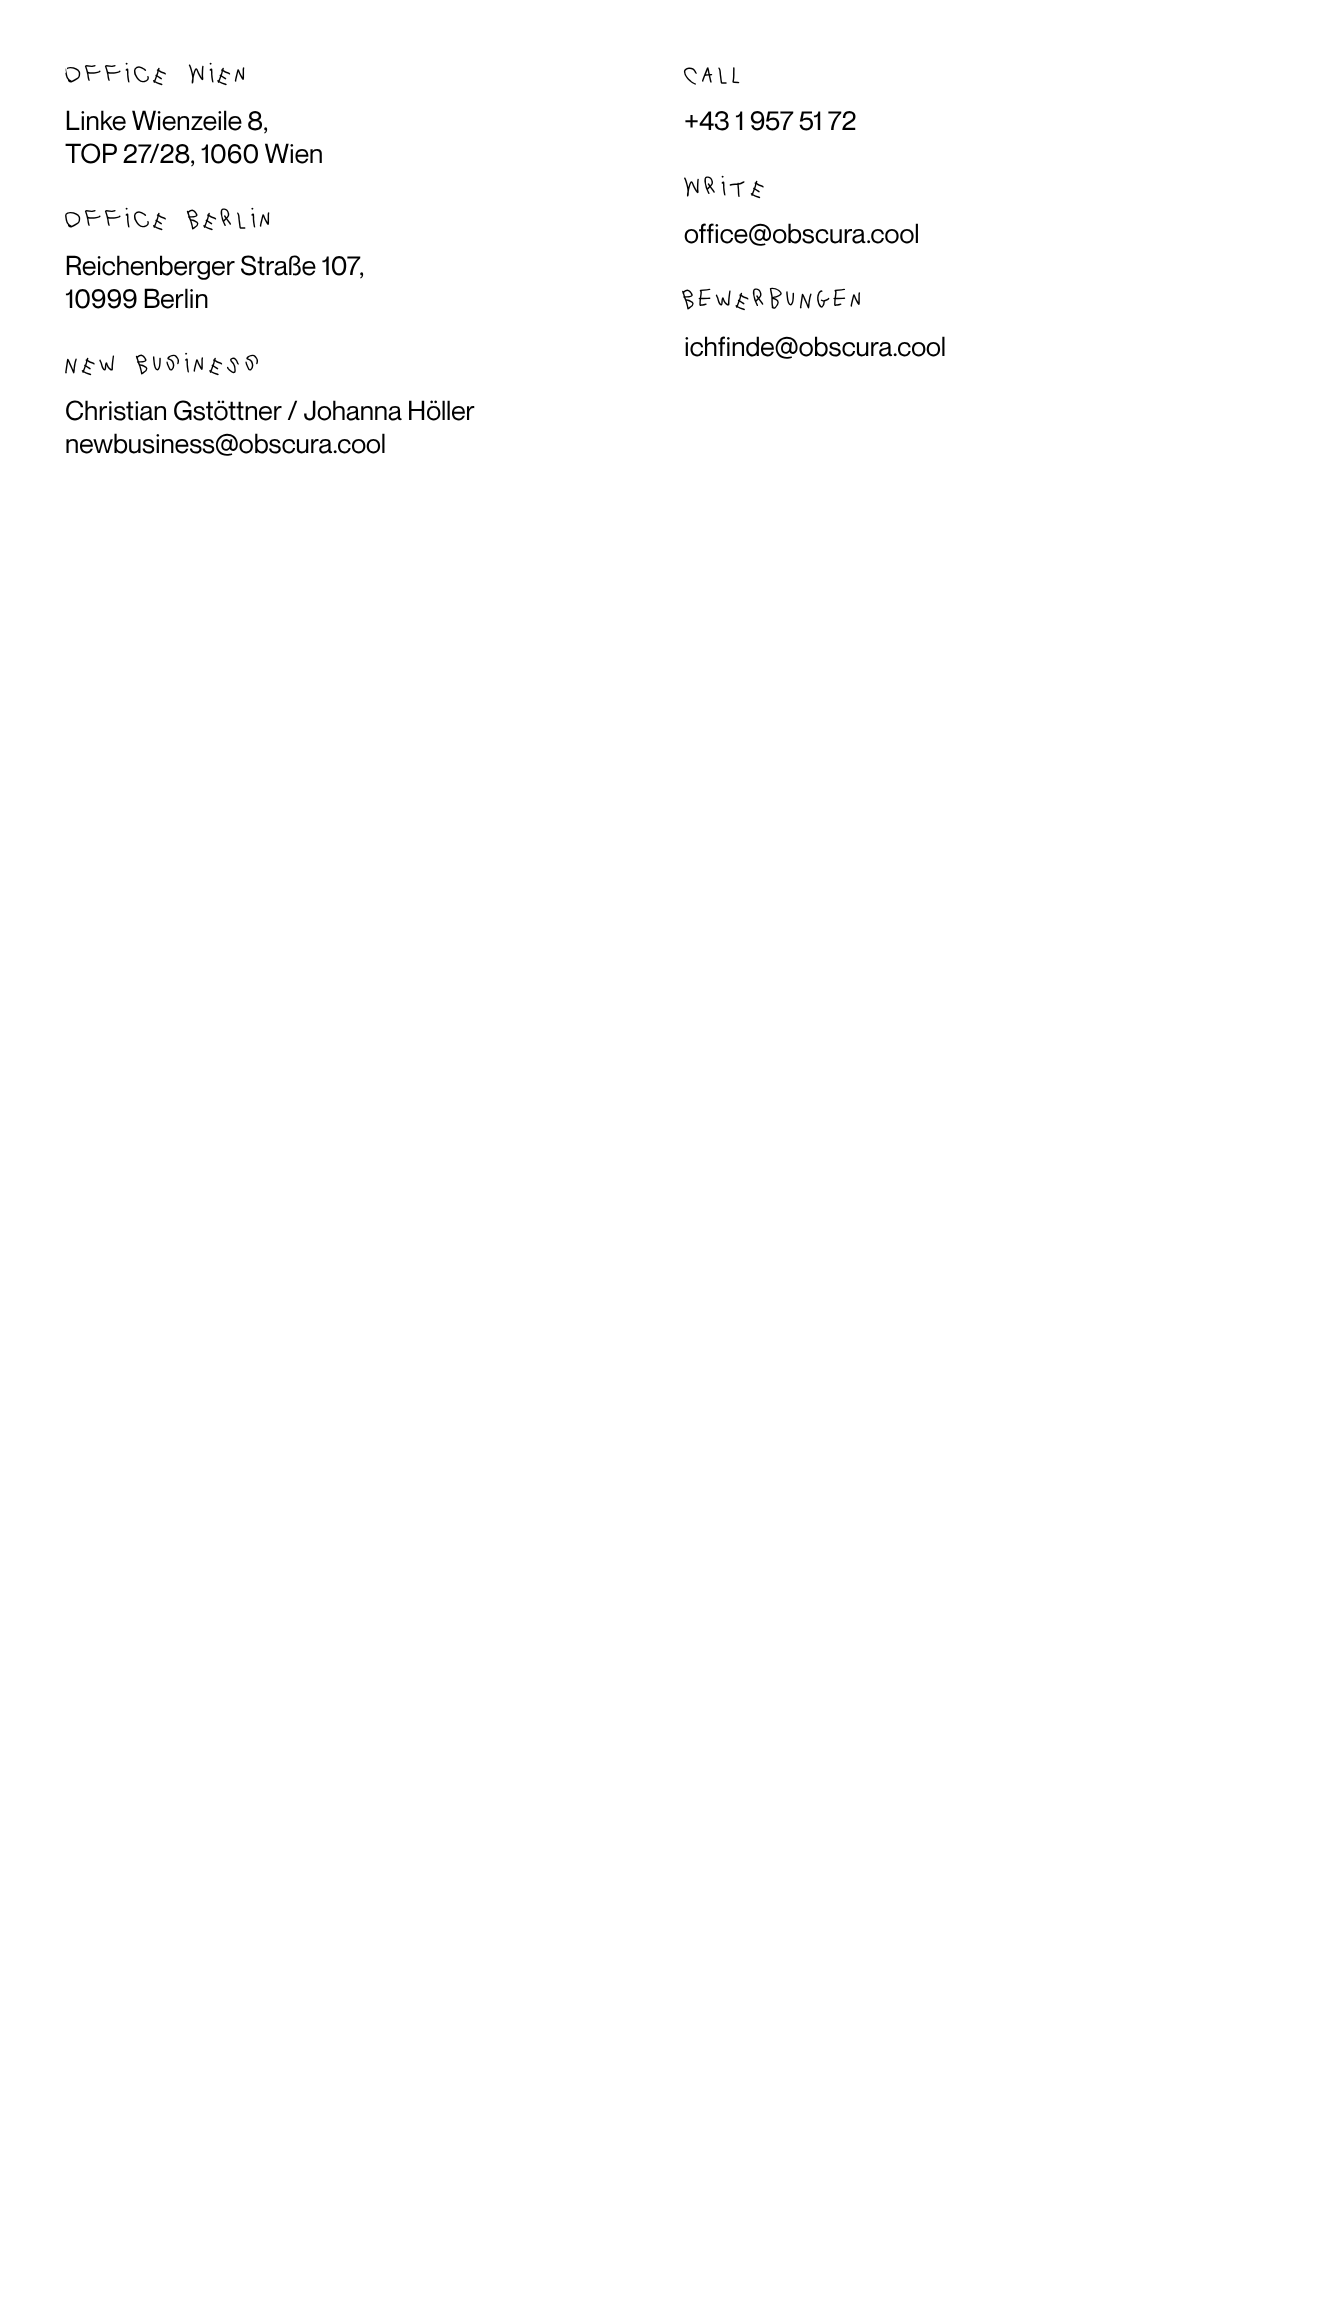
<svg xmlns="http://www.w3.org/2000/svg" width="1344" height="2307">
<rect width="100%" height="100%" fill="#fff"/>
<text x="65" y="82" style="font-family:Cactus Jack;font-size:47px;fill:#000">Office Wien</text>
<text x="65" y="130" style="font-family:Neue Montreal;font-size:26.9px;fill:#000">Linke Wienzeile 8,</text>
<text x="65" y="163" style="font-family:Neue Montreal;font-size:26.9px;fill:#000">TOP 27/28, 1060 Wien</text>
<text x="65" y="227" style="font-family:Cactus Jack;font-size:47px;fill:#000">Office Berlin</text>
<text x="65" y="275" style="font-family:Neue Montreal;font-size:26.9px;fill:#000">Reichenberger Straße 107,</text>
<text x="65" y="308" style="font-family:Neue Montreal;font-size:26.9px;fill:#000">10999 Berlin</text>
<text x="65" y="372" style="font-family:Cactus Jack;font-size:47px;fill:#000">New BusineSs</text>
<text x="65" y="420" style="font-family:Neue Montreal;font-size:26.9px;fill:#000">Christian Gstöttner / Johanna Höller</text>
<text x="65" y="453" style="font-family:Neue Montreal;font-size:26.9px;fill:#000">newbusiness@obscura.cool</text>
<text x="684" y="82" style="font-family:Cactus Jack;font-size:47px;fill:#000">CalL</text>
<text x="684" y="130" style="font-family:Neue Montreal;font-size:26.9px;fill:#000">+43 1 957 51 72</text>
<text x="684" y="195" style="font-family:Cactus Jack;font-size:47px;fill:#000">Write</text>
<text x="684" y="243" style="font-family:Neue Montreal;font-size:26.9px;fill:#000">office@obscura.cool</text>
<text x="684" y="307" style="font-family:Cactus Jack;font-size:47px;fill:#000">BEwerbuNgEn</text>
<text x="684" y="356" style="font-family:Neue Montreal;font-size:26.9px;fill:#000">ichfinde@obscura.cool</text>
<image x="65" y="67" width="3" height="6" href="media/1.png"/>
</svg>
